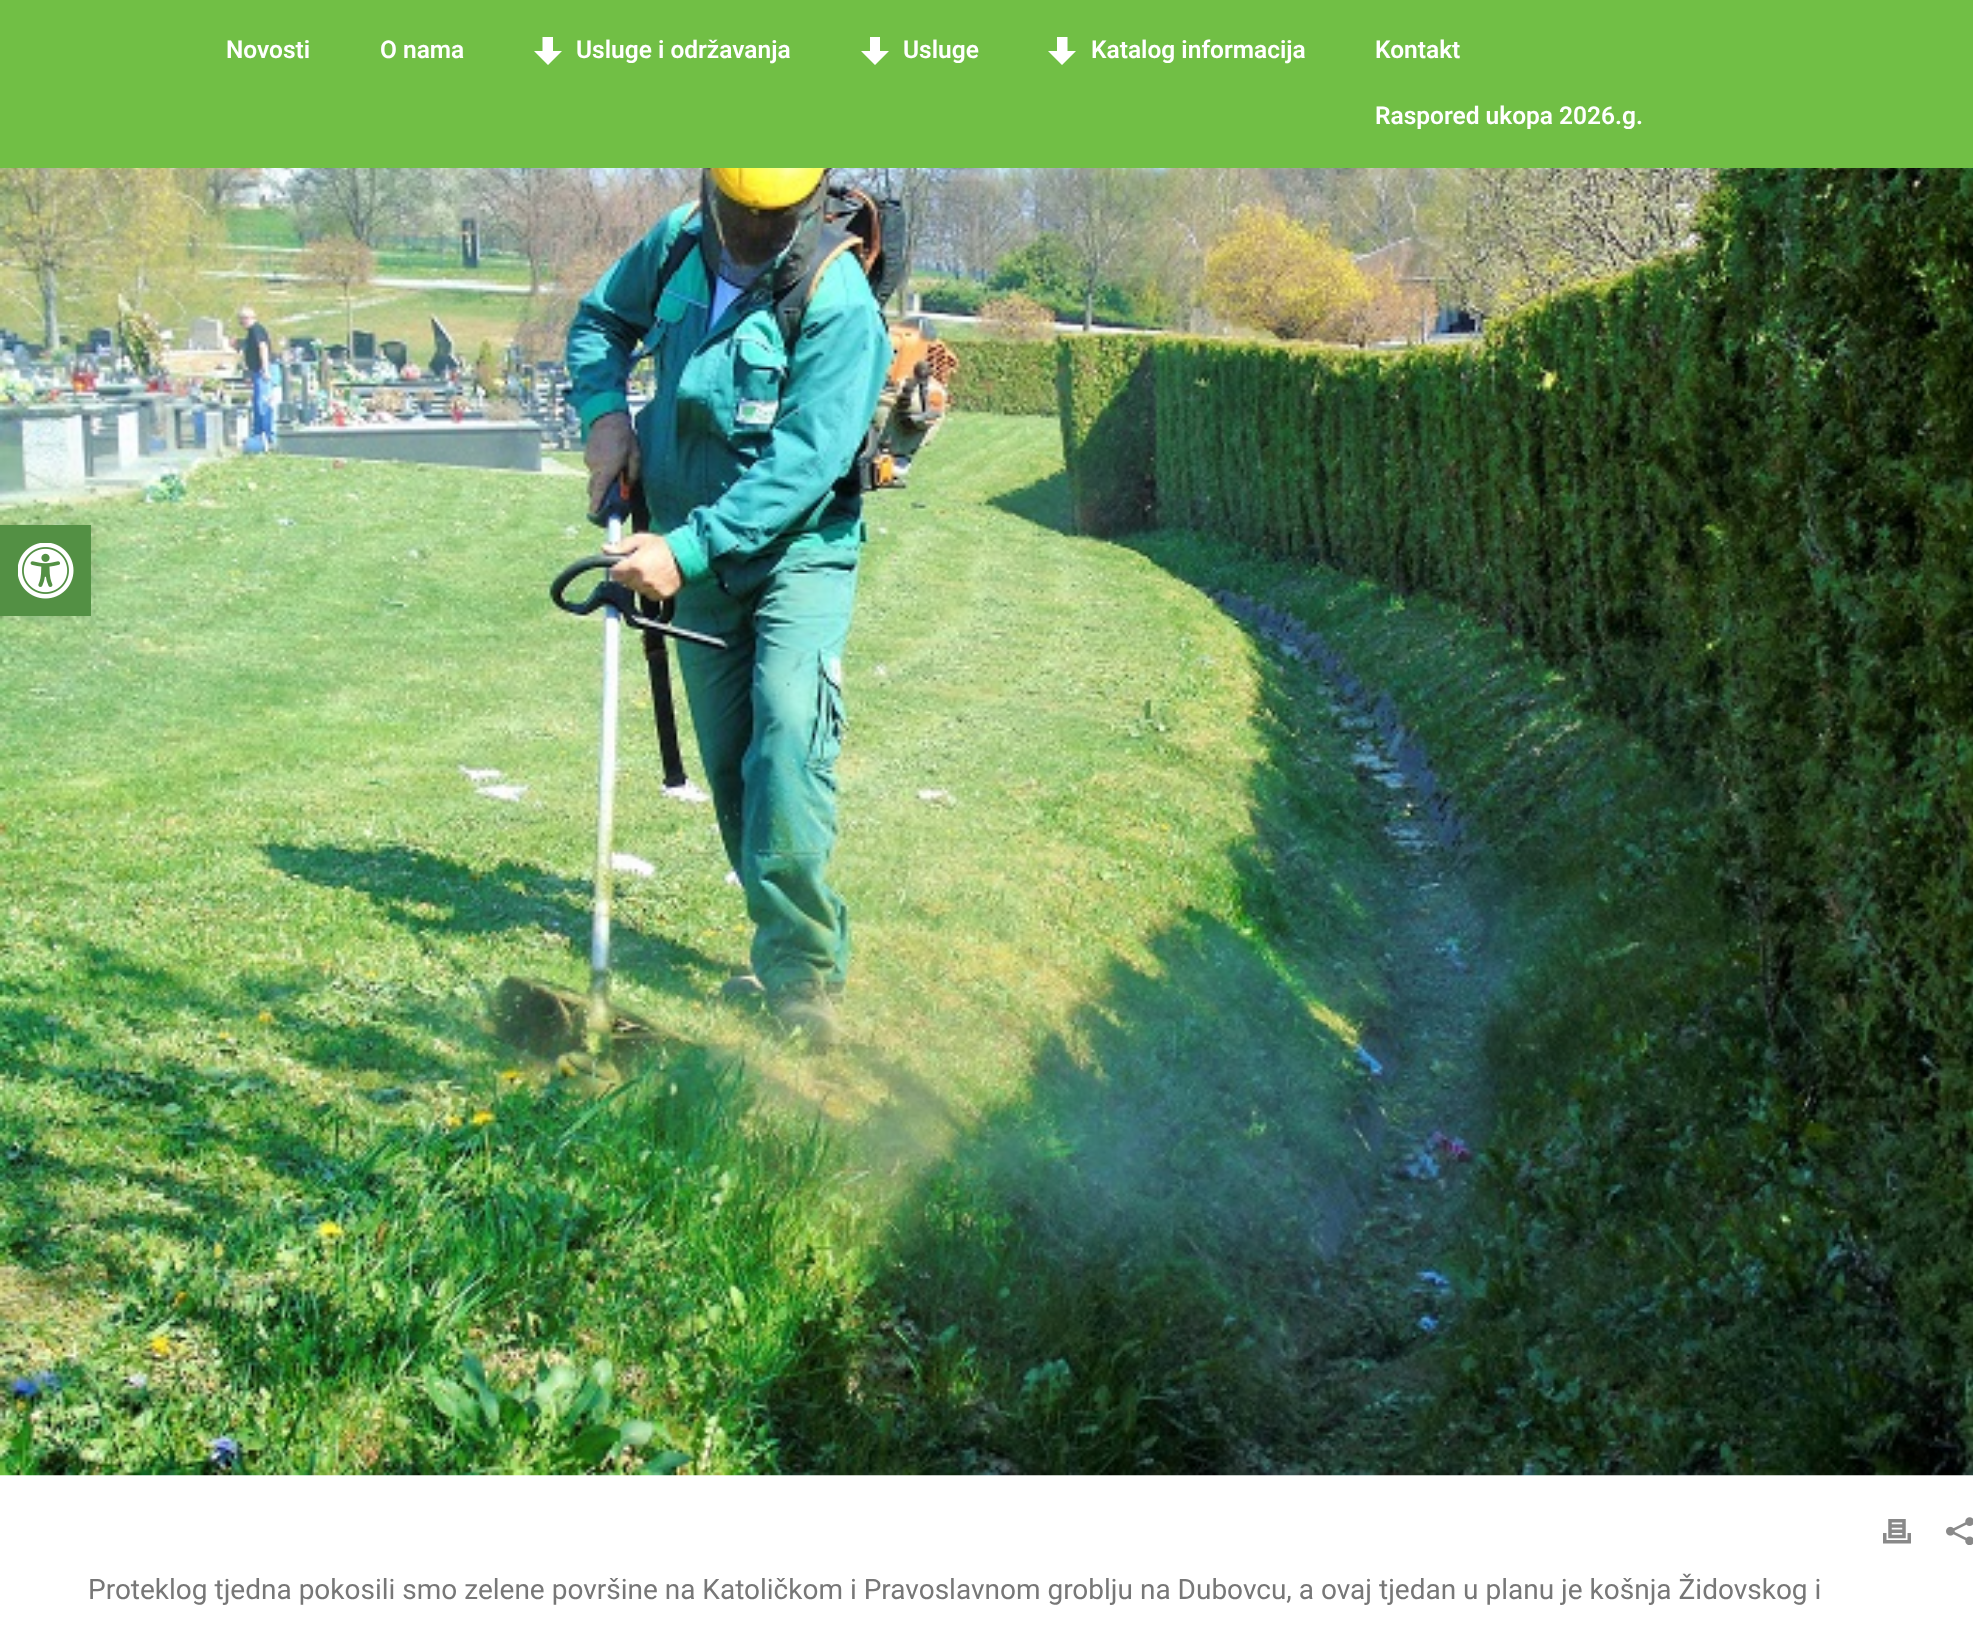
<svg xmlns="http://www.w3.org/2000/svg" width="1973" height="1637">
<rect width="100%" height="100%" fill="#fff"/>
<image x="0" y="168" width="1973" height="1308" href="media/2.png"/>
<rect y="525" width="91" height="91" fill="#0000001a" filter="blur(9px)"/>
<rect y="525" width="91" height="91" fill="#539044"/>
<image x="18" y="543" width="56" height="56" href="media/1.png"/>
<rect width="1973" height="168" fill="#71bf45"/>
<text x="226" y="58" style="font-family:Roboto;font-size:24.5px;font-weight:600;fill:#fff">Novosti</text>
<text x="380" y="58" style="font-family:Roboto;font-size:24.5px;font-weight:600;fill:#fff">O nama</text>
<path d="M548 65l14-14h-9v-14h-10.5v14h-8.5z" fill="#fff"/>
<text x="576" y="58" style="font-family:Roboto;font-size:24.5px;font-weight:600;fill:#fff">Usluge i održavanja</text>
<path d="M875 65l14-14h-9v-14h-10v14h-9z" fill="#fff"/>
<text x="903" y="58" style="font-family:Roboto;font-size:24.5px;font-weight:600;fill:#fff">Usluge</text>
<path d="M1062 65l14-14h-8.5v-14h-10.5v14h-9z" fill="#fff"/>
<text x="1091" y="58" style="font-family:Roboto;font-size:24.5px;font-weight:600;fill:#fff">Katalog informacija</text>
<text x="1375" y="58" style="font-family:Roboto;font-size:24.5px;font-weight:600;fill:#fff">Kontakt</text>
<text x="1375" y="124" style="font-family:Roboto;font-size:24.5px;font-weight:600;fill:#fff">Raspored ukopa 2026.g.</text>
<image x="1883" y="1519" width="28" height="25" href="media/3.png"/>
<image x="1946" y="1517" width="27" height="28" href="media/4.png"/>
<text x="88" y="1599" style="font-family:Roboto;font-size:28px;fill:#777">Proteklog tjedna pokosili smo zelene površine na Katoličkom i Pravoslavnom groblju na Dubovcu, a ovaj tjedan u planu je košnja Židovskog i</text>
</svg>
